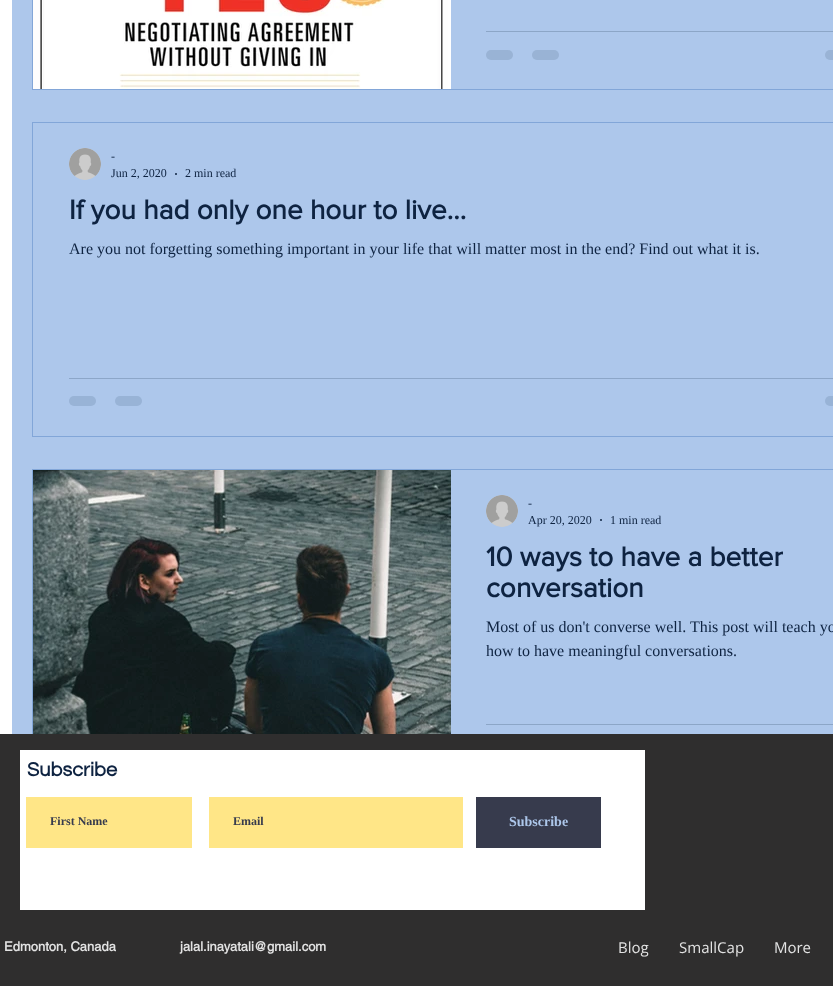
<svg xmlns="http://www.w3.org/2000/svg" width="833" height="986">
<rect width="100%" height="100%" fill="#fff"/>
<rect x="12" width="821" height="734" fill="#adc7eb"/>
<rect x="32.5" y="-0.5" width="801" height="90" fill="none" stroke="#82a6d8"/>
<image x="33" y="0" width="7" height="89" href="media/1.png"/>
<image x="40" y="0" width="411" height="89" href="media/2.png"/>
<rect x="486" y="31" width="347" height="1" fill="#8ca6c7"/>
<rect x="486" y="50" width="27" height="10" rx="5" fill="#99b3d5"/>
<rect x="532" y="50" width="27" height="10" rx="5" fill="#99b3d5"/>
<rect x="825" y="50" width="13" height="10" rx="5" fill="#99b3d5"/>
<rect x="32.5" y="122.5" width="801" height="314" fill="none" stroke="#82a6d8"/>
<image x="69" y="148" width="32" height="32" href="media/3.png"/>
<text x="111" y="160" style="font-family:Liberation Serif;font-size:12px;fill:#0e2341">-</text>
<text x="111" y="177" style="font-family:Liberation Serif;font-size:12px;fill:#0e2341">Jun 2, 2020</text>
<circle cx="176" cy="174" r="1" fill="#0e2341"/>
<text x="185" y="177" style="font-family:Liberation Serif;font-size:12px;fill:#0e2341">2 min read</text>
<text x="69" y="219" style="font-family:'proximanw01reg';font-size:28px;font-weight:bold;fill:#0e2341">If you had only one hour to live...</text>
<text x="69" y="254" style="font-family:Liberation Serif;font-size:16px;fill:#0e2341">Are you not forgetting something important in your life that will matter most in the end? Find out what it is.</text>
<rect x="69" y="378" width="764" height="1" fill="#8ca6c8"/>
<rect x="69" y="396" width="27" height="10" rx="5" fill="#98b3d6"/>
<rect x="115" y="396" width="27" height="10" rx="5" fill="#98b3d6"/>
<rect x="825" y="396" width="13" height="10" rx="5" fill="#98b3d6"/>
<rect x="32.5" y="469.5" width="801" height="313" fill="none" stroke="#82a6d8"/>
<image x="33" y="470" width="418" height="264" href="media/4.png"/>
<image x="486" y="495" width="32" height="32" href="media/5.png"/>
<text x="528" y="507" style="font-family:Liberation Serif;font-size:12px;fill:#0e2341">-</text>
<text x="528" y="524" style="font-family:Liberation Serif;font-size:12px;fill:#0e2341">Apr 20, 2020</text>
<circle cx="601" cy="520" r="1" fill="#0e2341"/>
<text x="610" y="524" style="font-family:Liberation Serif;font-size:12px;fill:#0e2341">1 min read</text>
<text x="486" y="566" style="font-family:'proximanw01reg';font-size:28px;font-weight:bold;fill:#0e2341">10 ways to have a better</text>
<text x="486" y="597" style="font-family:'proximanw01reg';font-size:28px;font-weight:bold;fill:#0e2341">conversation</text>
<text x="486" y="632" style="font-family:Liberation Serif;font-size:16px;fill:#0e2341">Most of us don't converse well. This post will teach yo</text>
<text x="486" y="656" style="font-family:Liberation Serif;font-size:16px;fill:#0e2341">how to have meaningful conversations.</text>
<rect x="486" y="724" width="347" height="1" fill="#8ca6c7"/>
<rect y="734" width="833" height="252" fill="#2f2e2e"/>
<rect x="20" y="750" width="625" height="160" fill="#fff"/>
<text x="27" y="776" style="font-family:Questrial;font-size:20px;font-weight:bold;fill:#0e2341">Subscribe</text>
<rect x="26" y="797" width="166" height="51" fill="#ffe687"/>
<text x="50" y="825" style="font-family:Liberation Serif;font-size:12px;font-weight:bold;fill:#373b4d">First Name</text>
<rect x="209" y="797" width="254" height="51" fill="#ffe687"/>
<text x="233" y="825" style="font-family:Liberation Serif;font-size:12px;font-weight:bold;fill:#373b4d">Email</text>
<rect x="476" y="797" width="125" height="51" fill="#373b4d"/>
<text x="509" y="826" style="font-family:Liberation Serif;font-size:14px;font-weight:bold;fill:#adc7eb">Subscribe</text>
<text x="4" y="951" style="font-family:helvetica;font-size:13px;font-weight:bold;fill:#e3e3e3">Edmonton, Canada</text>
<text x="180" y="951" style="font-family:helvetica;font-size:13px;font-weight:bold;fill:#e3e3e3">jalal.inayatali@gmail.com</text>
<text x="618" y="953" style="font-family:Open Sans;font-size:15px;fill:#e3e3e3">Blog</text>
<text x="679" y="953" style="font-family:Open Sans;font-size:15px;fill:#e3e3e3">SmallCap</text>
<text x="774" y="953" style="font-family:Open Sans;font-size:15px;fill:#e3e3e3">More</text>
</svg>
